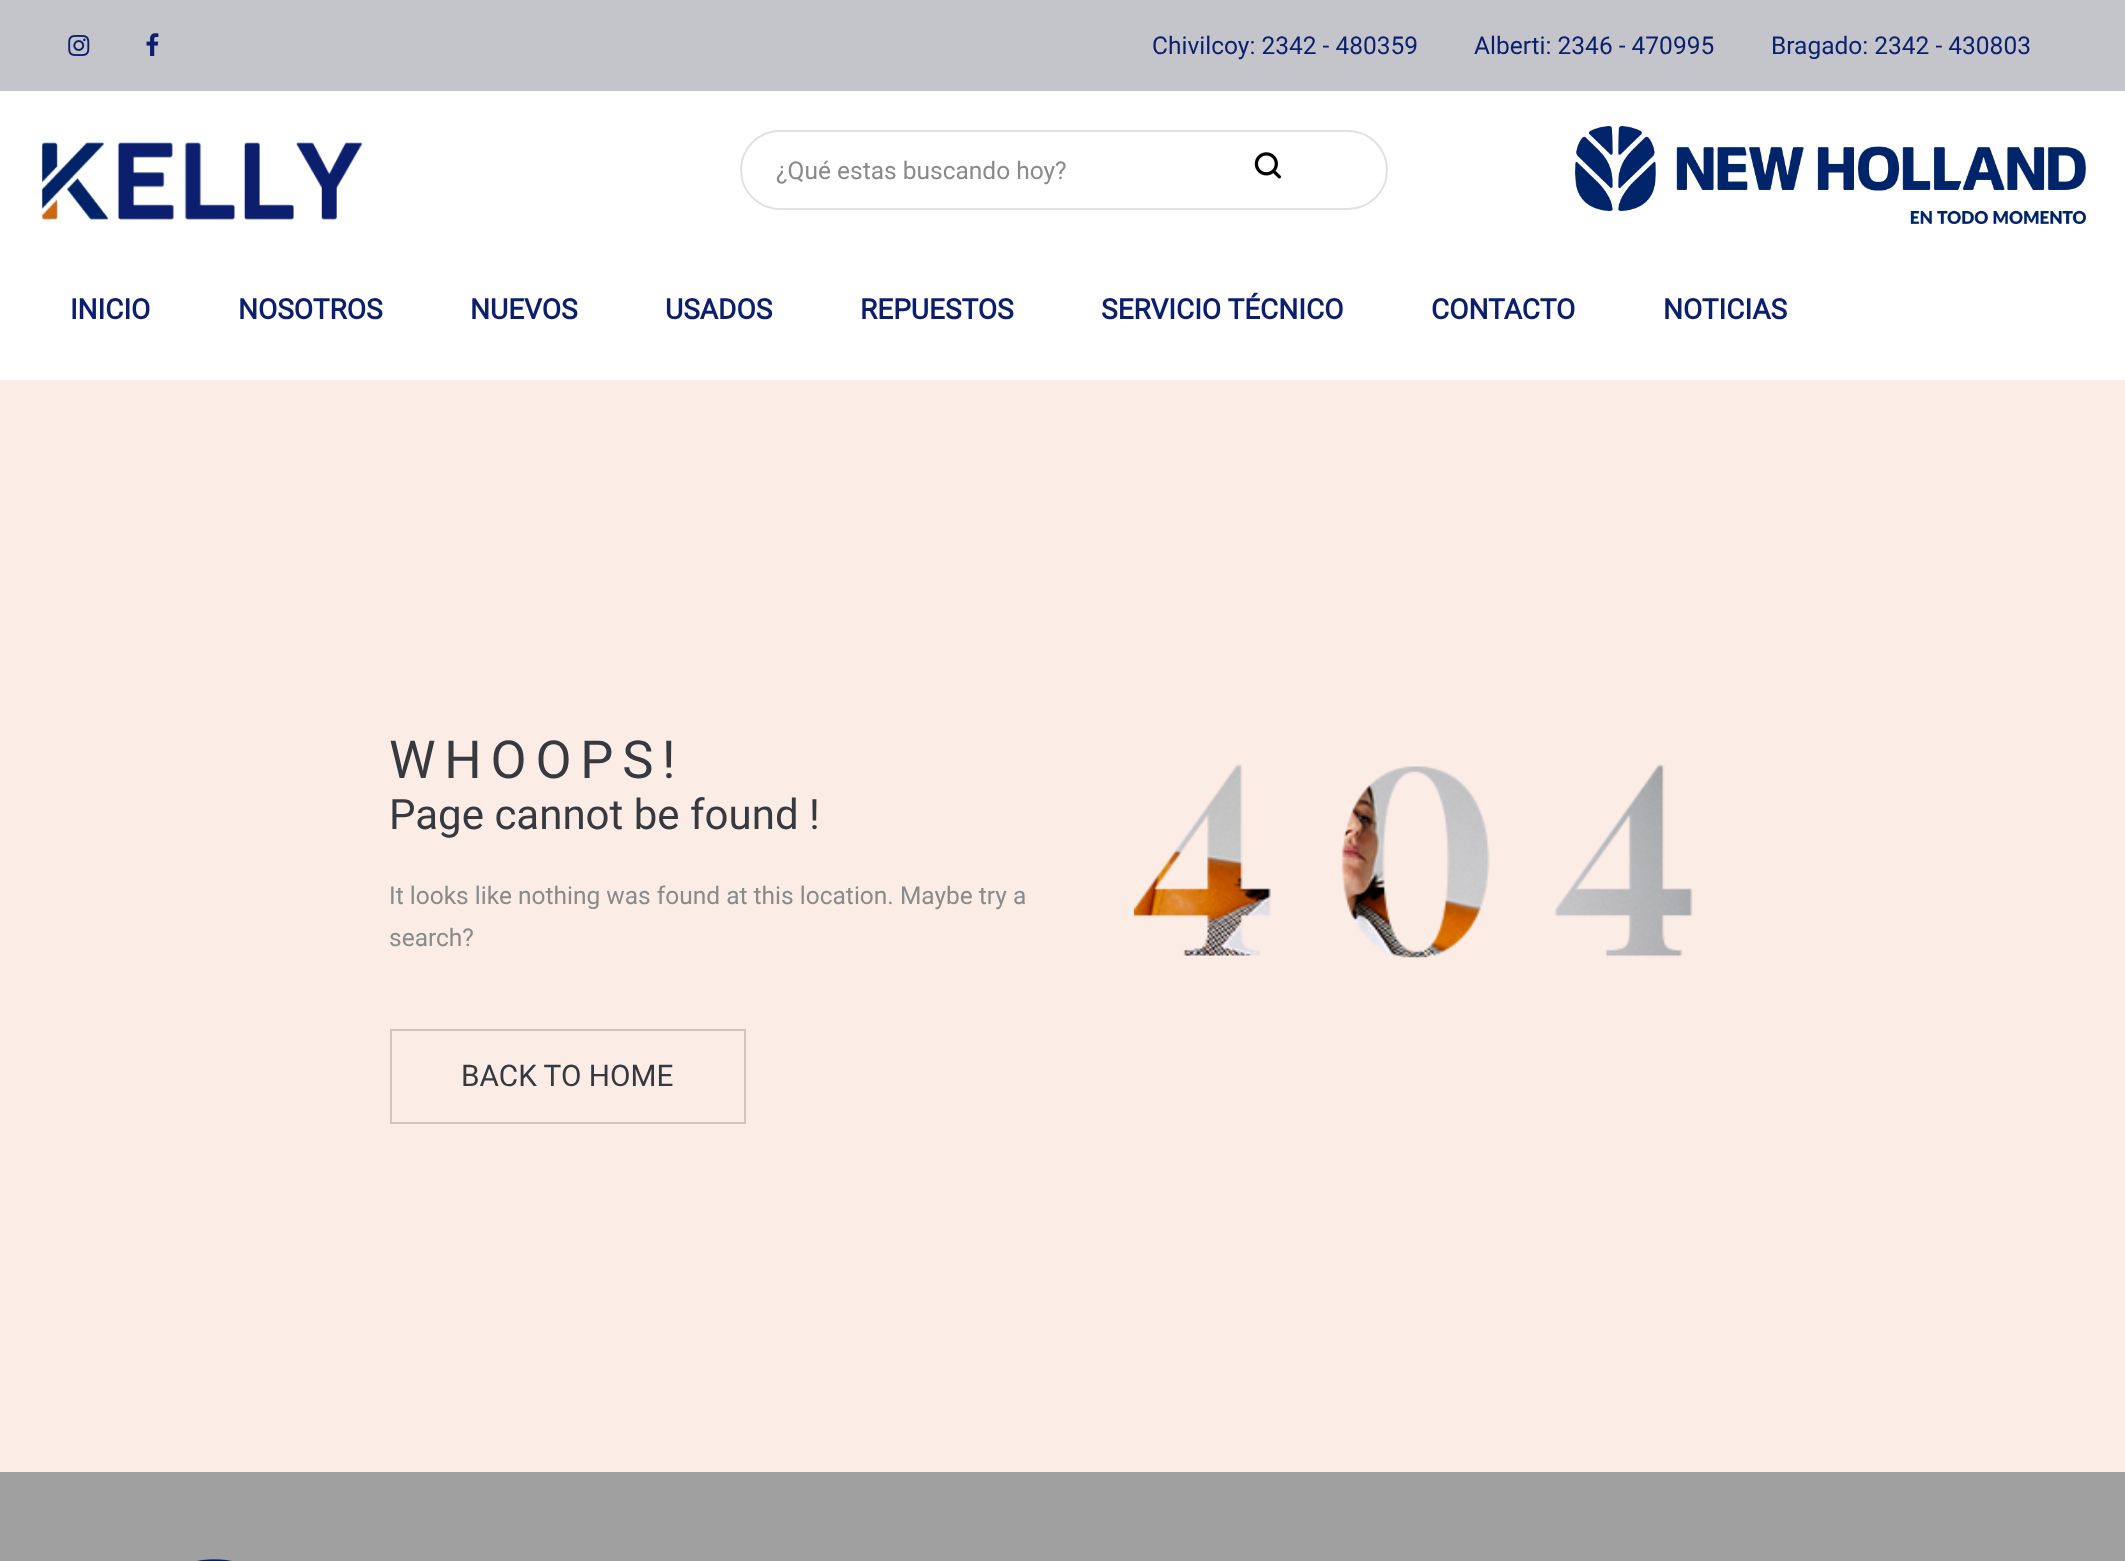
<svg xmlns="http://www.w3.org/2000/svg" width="2125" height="1561">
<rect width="100%" height="100%" fill="#fff"/>
<rect width="2125" height="91" fill="#c3c5ca"/>
<image x="68" y="35" width="22" height="21" href="media/1.png"/>
<image x="146" y="33" width="13" height="23" href="media/2.png"/>
<text x="1152" y="54" style="font-family:Roboto;font-size:24.5px;fill:#0c1f6e">Chivilcoy: 2342 - 480359</text>
<text x="1474" y="54" style="font-family:Roboto;font-size:24.5px;fill:#0c1f6e">Alberti: 2346 - 470995</text>
<text x="1771" y="54" style="font-family:Roboto;font-size:24.5px;fill:#0c1f6e">Bragado: 2342 - 430803</text>
<image x="41" y="142" width="322" height="78" href="media/3.png"/>
<rect x="741" y="131" width="646" height="78" rx="39" fill="none" stroke="#e1e1e1" stroke-width="2"/>
<text x="776" y="179" style="font-family:Roboto;font-size:24.5px;fill:#8a8a8a">¿Qué estas buscando hoy?</text>
<image x="1254" y="152" width="27" height="27" href="media/4.png"/>
<image x="1575" y="126" width="511" height="98" href="media/5.png"/>
<text x="70" y="319" style="font-family:Roboto;font-size:28px;font-weight:bold;fill:#0c1f6e">INICIO</text>
<text x="238" y="319" style="font-family:Roboto;font-size:28px;font-weight:bold;fill:#0c1f6e">NOSOTROS</text>
<text x="470" y="319" style="font-family:Roboto;font-size:28px;font-weight:bold;fill:#0c1f6e">NUEVOS</text>
<text x="665" y="319" style="font-family:Roboto;font-size:28px;font-weight:bold;fill:#0c1f6e">USADOS</text>
<text x="860" y="319" style="font-family:Roboto;font-size:28px;font-weight:bold;fill:#0c1f6e">REPUESTOS</text>
<text x="1101" y="319" style="font-family:Roboto;font-size:28px;font-weight:bold;fill:#0c1f6e">SERVICIO TÉCNICO</text>
<text x="1431" y="319" style="font-family:Roboto;font-size:28px;font-weight:bold;fill:#0c1f6e">CONTACTO</text>
<text x="1663" y="319" style="font-family:Roboto;font-size:28px;font-weight:bold;fill:#0c1f6e">NOTICIAS</text>
<rect y="380" width="2125" height="1092" fill="#fbece6"/>
<text x="389" y="778" style="font-family:Roboto;font-size:52.5px;letter-spacing:8.75px;fill:#36393e">WHOOPS!</text>
<text x="389" y="829" style="font-family:Roboto;font-size:42px;fill:#36393e">Page cannot be found !</text>
<text x="389" y="904" style="font-family:Roboto;font-size:24.5px;fill:#8a8a8a">It looks like nothing was found at this location. Maybe try a</text>
<text x="389" y="946" style="font-family:Roboto;font-size:24.5px;fill:#8a8a8a">search?</text>
<rect x="391" y="1030" width="354" height="93" fill="none" stroke="#d0c4bf" stroke-width="2"/>
<text x="461" y="1086" style="font-family:Roboto;font-size:29.75px;fill:#36393e">BACK TO HOME</text>
<image x="1134" y="764" width="559" height="194" href="media/6.png"/>
<rect y="1472" width="2125" height="89" fill="#a0a0a0"/>
<image x="197" y="1559" width="35" height="2" href="media/7.png"/>
</svg>
